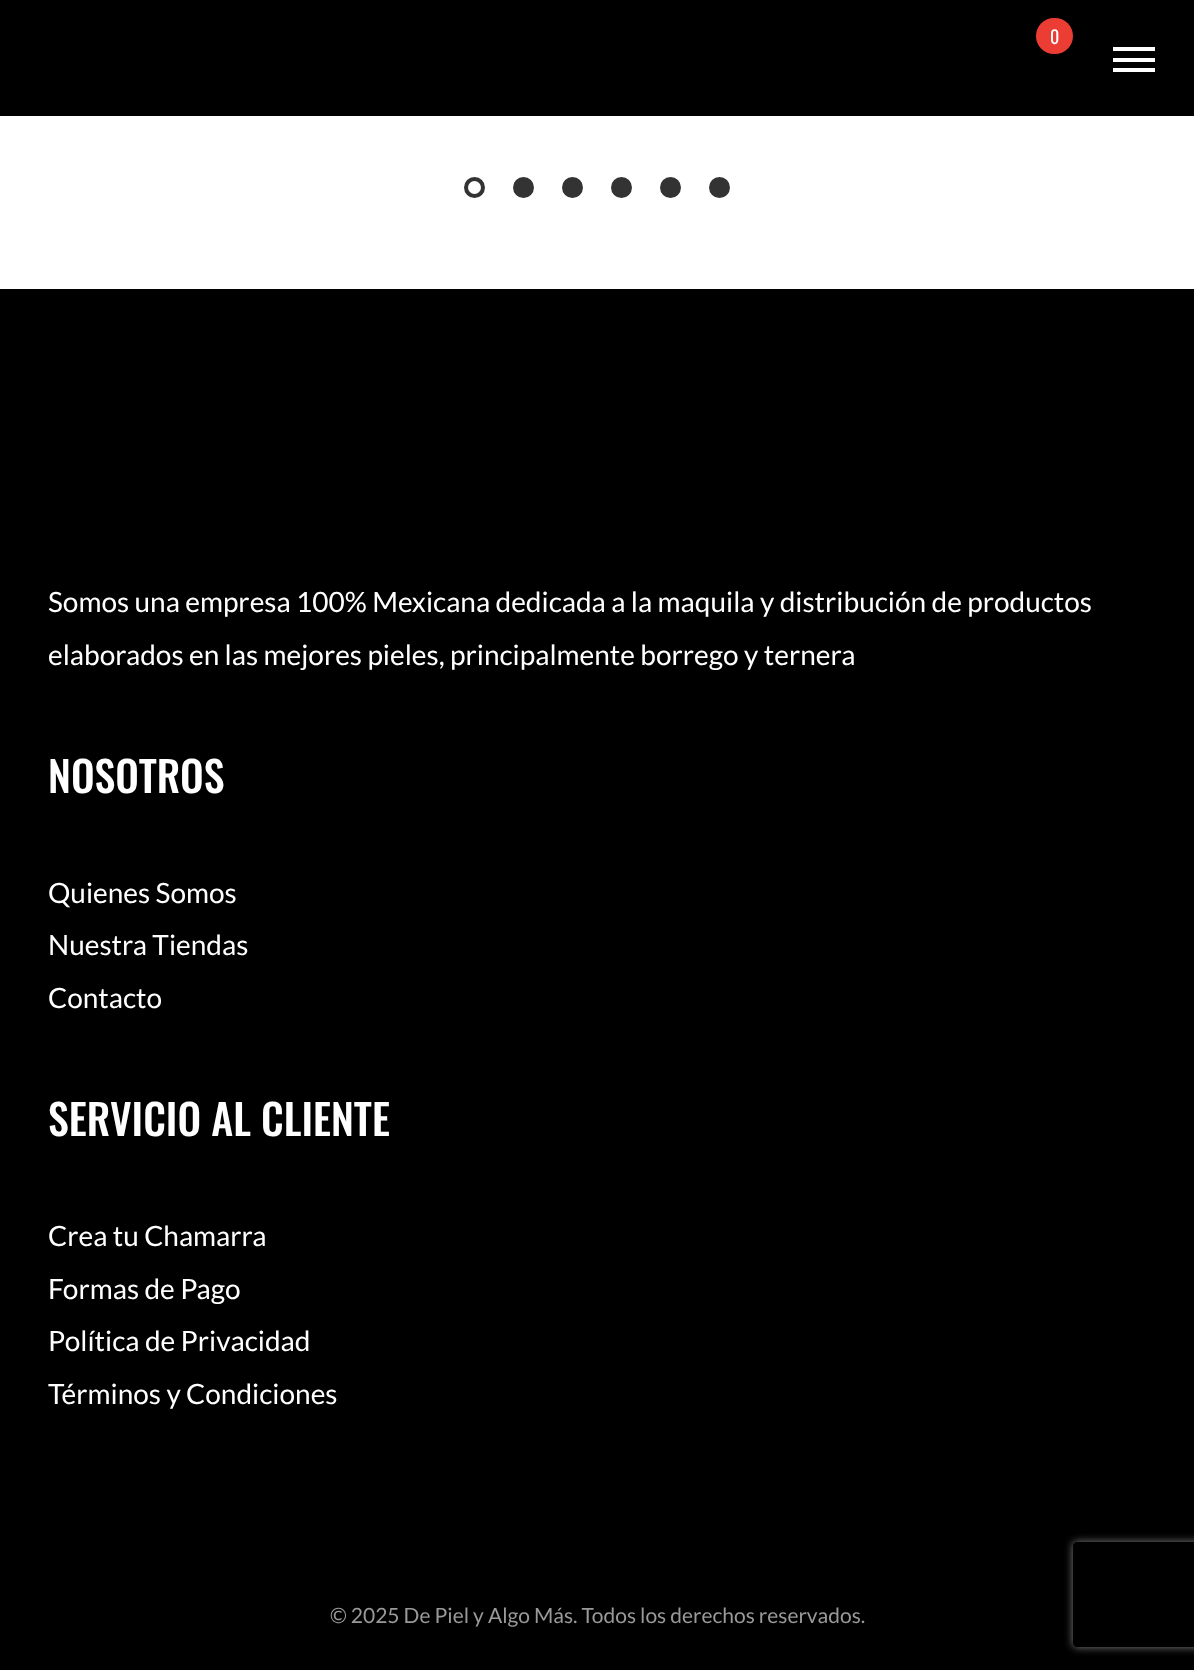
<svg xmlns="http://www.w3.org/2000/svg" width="1194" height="1670">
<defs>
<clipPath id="clip1"><path d="M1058 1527h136v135h-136zm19 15h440c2 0 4 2 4 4v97c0 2-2 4-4 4h-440c-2 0-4-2-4-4v-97c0-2 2-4 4-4z" clip-rule="evenodd"/></clipPath>
</defs>
<rect width="100%" height="100%" fill="#000"/>
<rect x="1036" y="18" width="37" height="36" rx="18" fill="#eb3d33"/>
<text x="1050" y="44" style="font-family:Oswald;font-size:18px;fill:#fff">0</text>
<rect x="1113" y="47" width="42" height="4" fill="#fff"/>
<rect x="1113" y="58" width="42" height="4" fill="#fff"/>
<rect x="1113" y="68" width="42" height="4" fill="#fff"/>
<rect y="116" width="1194" height="173" fill="#fff"/>
<circle cx="474.5" cy="187.5" r="8.5" fill="none" stroke="#333" stroke-width="4"/>
<circle cx="523.5" cy="187.5" r="8.5" fill="#333" stroke="#333" stroke-width="4"/>
<circle cx="572.5" cy="187.5" r="8.5" fill="#333" stroke="#333" stroke-width="4"/>
<circle cx="621.5" cy="187.5" r="8.5" fill="#333" stroke="#333" stroke-width="4"/>
<circle cx="670.5" cy="187.5" r="8.5" fill="#333" stroke="#333" stroke-width="4"/>
<circle cx="719.5" cy="187.5" r="8.5" fill="#333" stroke="#333" stroke-width="4"/>
<text x="48" y="612" style="font-family:Lato;font-size:28px;fill:#fff">Somos una empresa 100% Mexicana dedicada a la maquila y distribución de productos</text>
<text x="48" y="665" style="font-family:Lato;font-size:28px;fill:#fff">elaborados en las mejores pieles, principalmente borrego y ternera</text>
<text x="48" y="793" style="font-family:Oswald;font-size:42px;font-weight:500;fill:#fff">NOSOTROS</text>
<text x="48" y="903" style="font-family:Lato;font-size:28px;fill:#fff">Quienes Somos</text>
<text x="48" y="955" style="font-family:Lato;font-size:28px;fill:#fff">Nuestra Tiendas</text>
<text x="48" y="1008" style="font-family:Lato;font-size:28px;fill:#fff">Contacto</text>
<text x="48" y="1136" style="font-family:Oswald;font-size:42px;font-weight:500;fill:#fff">SERVICIO AL CLIENTE</text>
<text x="48" y="1246" style="font-family:Lato;font-size:28px;fill:#fff">Crea tu Chamarra</text>
<text x="48" y="1299" style="font-family:Lato;font-size:28px;fill:#fff">Formas de Pago</text>
<text x="48" y="1351" style="font-family:Lato;font-size:28px;fill:#fff">Política de Privacidad</text>
<text x="48" y="1404" style="font-family:Lato;font-size:28px;fill:#fff">Términos y Condiciones</text>
<text x="330" y="1623" style="font-family:Lato;font-size:21px;fill:#999">© 2025 De Piel y Algo Más. Todos los derechos reservados.</text>
<g clip-path="url(#clip1)">
<rect x="1073" y="1542" width="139" height="105" rx="4" fill="#808080" filter="blur(4.5px)"/>
</g>
</svg>
